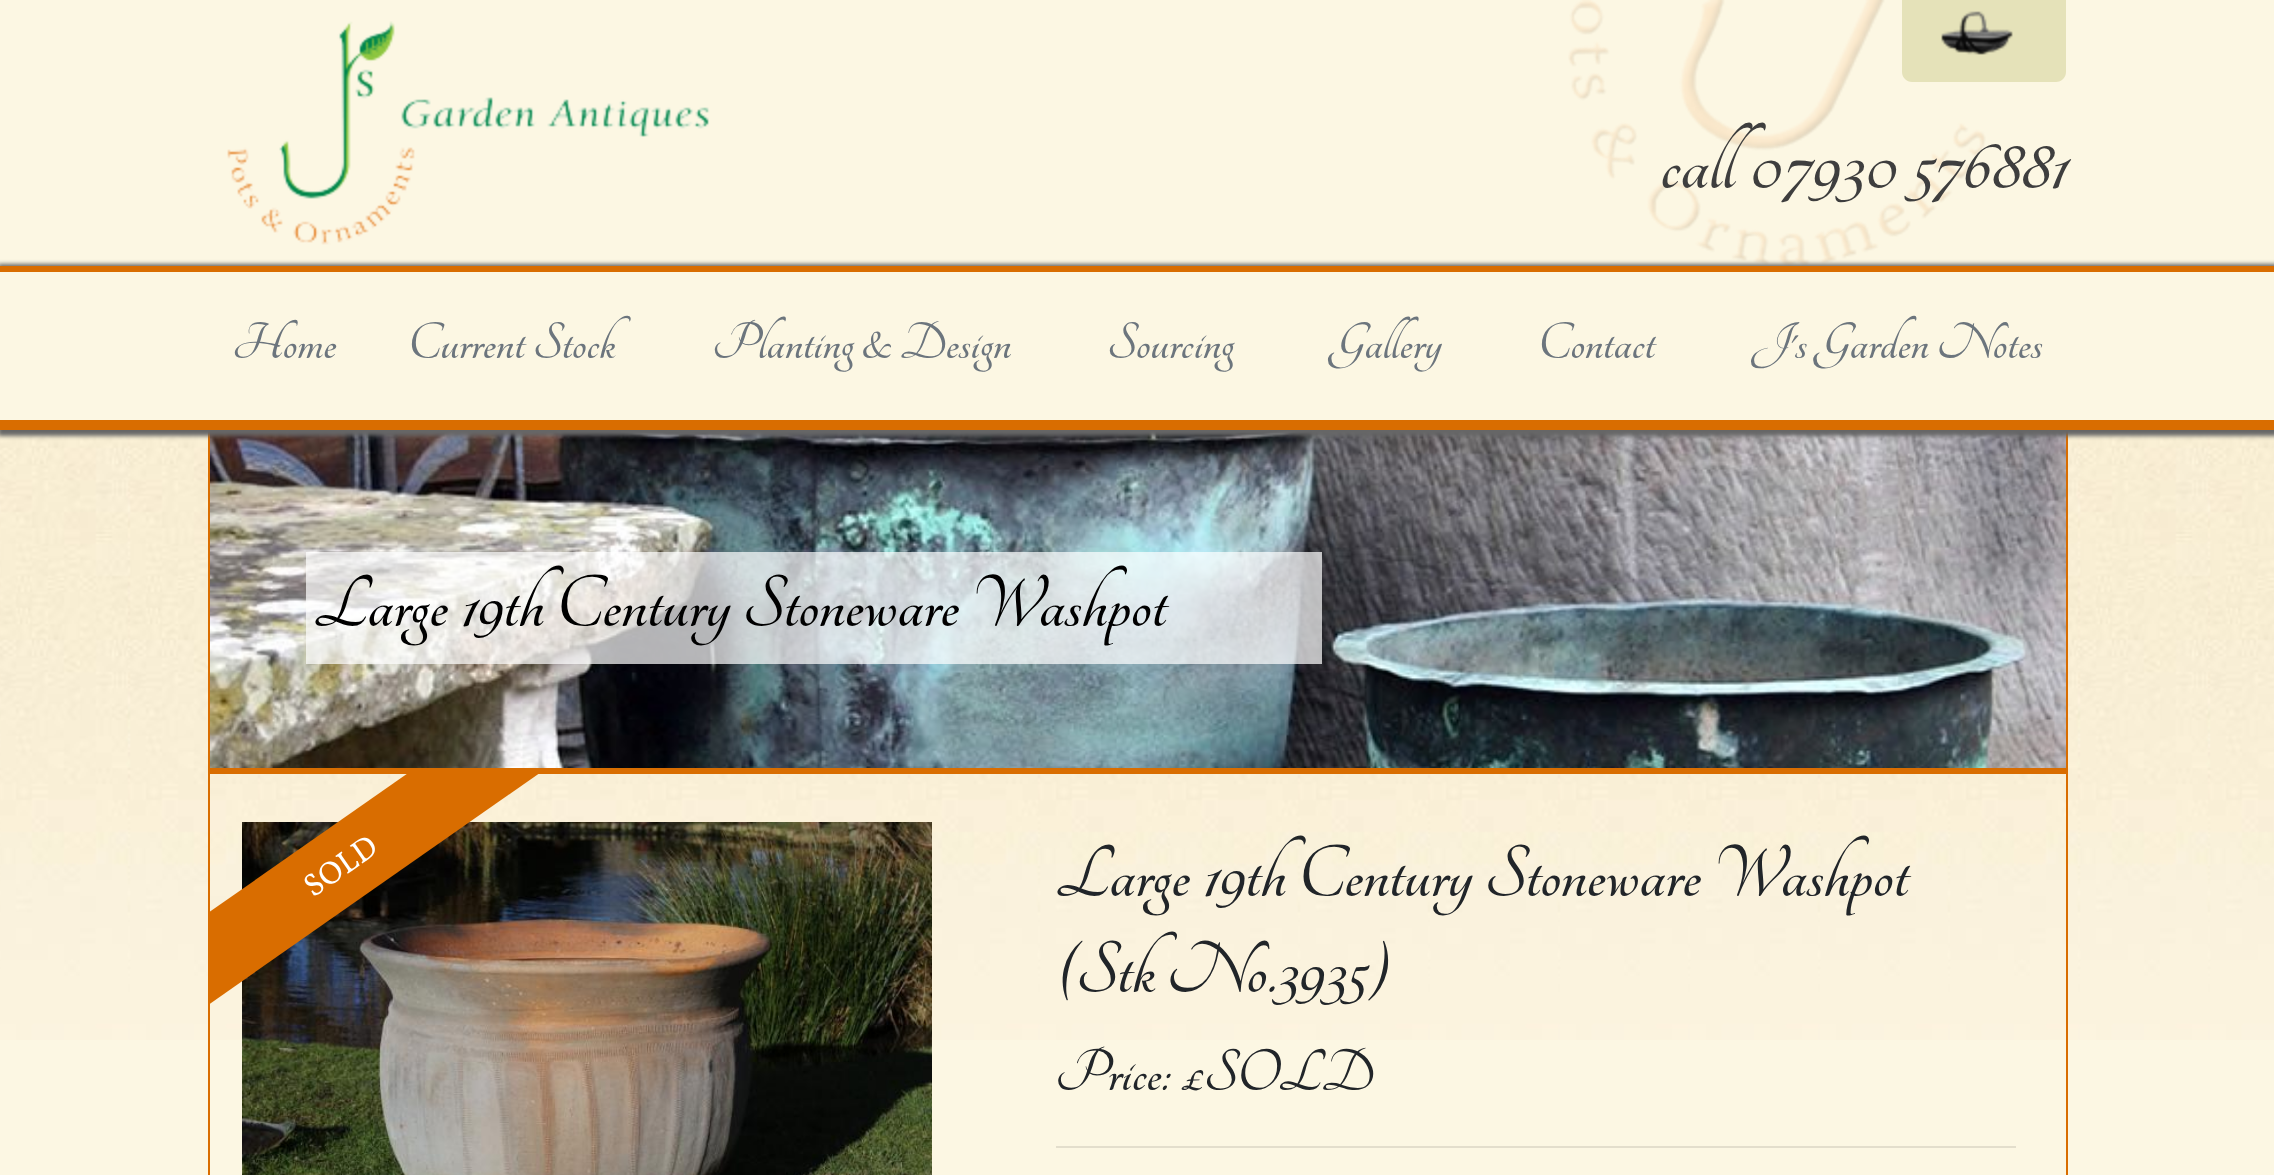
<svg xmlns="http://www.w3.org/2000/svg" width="2274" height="1175">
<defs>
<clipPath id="clip1"><rect x="210" y="774" width="1856" height="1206"/></clipPath>
</defs>
<rect width="100%" height="100%" fill="#fcf7e3"/>
<image x="0" y="430" width="2274" height="610" href="media/1.png"/>
<image x="1568" y="0" width="418" height="266" href="media/2.png"/>
<image x="227" y="21" width="483" height="224" href="media/3.png"/>
<path d="M1902-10h164v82c0 5.5-4.5 10-10 10h-144c-5.5 0-10-4.5-10-10z" fill="#e5e2b9"/>
<image x="1941" y="11" width="72" height="44" href="media/4.png"/>
<text x="1660" y="188" style="font-family:Tangerine;font-size:88px;font-weight:bold;fill:#3e3e3e">call 07930 576881</text>
<rect x="2066" y="431" width="2" height="744" fill="#d96d00"/>
<rect x="208" y="431" width="2" height="744" fill="#d96d00"/>
<image x="210" y="431" width="1856" height="337" href="media/5.png"/>
<rect x="-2" y="264" width="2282" height="172" fill="#666" filter="blur(2px)"/>
<rect y="272" width="2274" height="148" fill="#fcf7e3"/>
<rect y="266" width="2274" height="6" fill="#d96d00"/>
<rect y="420" width="2274" height="10" fill="#d96d00"/>
<text x="232" y="358" style="font-family:Tangerine;font-size:56px;font-weight:bold;fill:#6c757d">Home</text>
<text x="408" y="358" style="font-family:Tangerine;font-size:56px;font-weight:bold;fill:#6c757d">Current Stock</text>
<text x="712" y="358" style="font-family:Tangerine;font-size:56px;font-weight:bold;fill:#6c757d">Planting &amp; Design</text>
<text x="1107" y="358" style="font-family:Tangerine;font-size:56px;font-weight:bold;fill:#6c757d">Sourcing</text>
<text x="1330" y="358" style="font-family:Tangerine;font-size:56px;font-weight:bold;fill:#6c757d">Gallery</text>
<text x="1538" y="358" style="font-family:Tangerine;font-size:56px;font-weight:bold;fill:#6c757d">Contact</text>
<text x="1751" y="358" style="font-family:Tangerine;font-size:56px;font-weight:bold;fill:#6c757d">J's Garden Notes</text>
<rect x="210" y="768" width="1856" height="6" fill="#d96d00"/>
<rect x="306" y="552" width="1016" height="112" fill="#ffffffb3"/>
<text x="313" y="626" style="font-family:Tangerine;font-size:80px;font-weight:bold;fill:#000">Large 19th Century Stoneware Washpot</text>
<image x="242" y="822" width="690" height="353" href="media/6.png"/>
<g clip-path="url(#clip1)">
<path d="M105 985l429-300l43 62l-429 300z" fill="#d96d00"/>
</g>
<text x="313" y="898" transform="rotate(-35 313 898)" style="font-family:Vollkorn;font-size:32px;fill:#fff">SOLD</text>
<text x="1055" y="896" style="font-family:Tangerine;font-size:80px;font-weight:bold;fill:#212529">Large 19th Century Stoneware Washpot</text>
<text x="1055" y="992" style="font-family:Tangerine;font-size:80px;font-weight:bold;fill:#212529">(Stk No.3935)</text>
<text x="1055" y="1090" style="font-family:Tangerine;font-size:64px;font-weight:bold;fill:#212529">Price: £SOLD</text>
<rect x="1056" y="1146" width="960" height="2" fill="#e3decc"/>
</svg>
